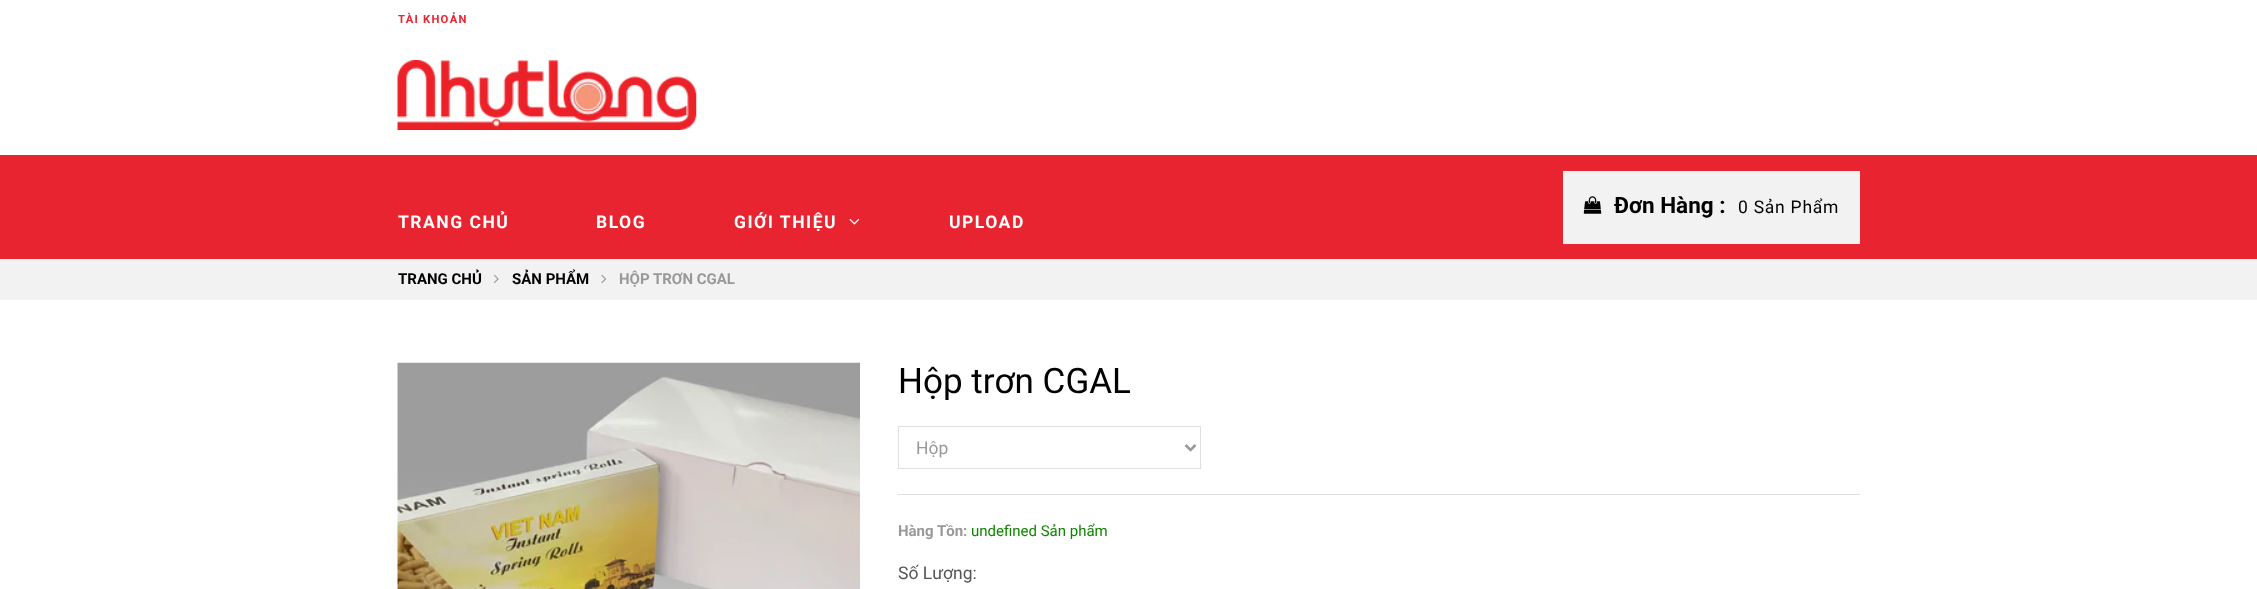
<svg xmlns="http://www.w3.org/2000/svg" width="2257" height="589">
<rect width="100%" height="100%" fill="#fff"/>
<text x="398" y="23" style="font-family:Roboto;font-size:11.25px;font-weight:bold;letter-spacing:1.25px;fill:#e92431">TÀI KHOẢN</text>
<image x="397" y="60" width="300" height="70" href="media/1.png"/>
<rect y="155" width="2257" height="104" fill="#e92431"/>
<rect x="1563" y="171" width="297" height="73" fill="#f2f2f2"/>
<image x="1583" y="196" width="19" height="18" href="media/2.png"/>
<text x="1614" y="213" style="font-family:Roboto;font-size:22.5px;font-weight:bold;fill:#000">Đơn Hàng :</text>
<text x="1738" y="213" style="font-family:Roboto;font-size:17.5px;letter-spacing:0.75px;fill:#000">0 Sản Phẩm</text>
<text x="398" y="228" style="font-family:Roboto;font-size:17.5px;font-weight:bold;letter-spacing:1.5px;fill:#fff">TRANG CHỦ</text>
<text x="596" y="228" style="font-family:Roboto;font-size:17.5px;font-weight:bold;letter-spacing:1.5px;fill:#fff">BLOG</text>
<text x="734" y="228" style="font-family:Roboto;font-size:17.5px;font-weight:bold;letter-spacing:1.5px;fill:#fff">GIỚI THIỆU</text>
<image x="849" y="218" width="11" height="7" href="media/3.png"/>
<text x="949" y="228" style="font-family:Roboto;font-size:17.5px;font-weight:bold;letter-spacing:1.5px;fill:#fff">UPLOAD</text>
<rect y="259" width="2257" height="41" fill="#f2f2f2"/>
<text x="398" y="284" style="font-family:Roboto;font-size:15px;font-weight:bold;fill:#000">TRANG CHỦ</text>
<image x="494" y="274" width="5" height="9" href="media/4.png"/>
<text x="512" y="284" style="font-family:Roboto;font-size:15px;font-weight:bold;fill:#000">SẢN PHẨM</text>
<image x="601" y="274" width="6" height="9" href="media/5.png"/>
<text x="619" y="284" style="font-family:Roboto;font-size:15px;font-weight:bold;fill:#999">HỘP TRƠN CGAL</text>
<image x="397" y="362" width="463" height="227" href="media/6.png"/>
<text x="898" y="393" style="font-family:Roboto;font-size:35px;fill:#000">Hộp trơn CGAL</text>
<rect x="898.5" y="426.5" width="302" height="42" fill="none" stroke="#dce0e3"/>
<path d="M1185.5 445l5 5l5-5" fill="none" stroke="#999" stroke-width="2.5"/>
<text x="916" y="454" style="font-family:Roboto;font-size:17.5px;fill:#999">Hộp</text>
<rect x="898" y="494" width="962" height="1" fill="#dce0e3"/>
<text x="898" y="536" style="font-family:Roboto;font-size:15px;font-weight:bold;fill:#999">Hàng Tồn:</text>
<text x="971" y="536" style="font-family:Roboto;font-size:15px;fill:#118502">undefined Sản phẩm</text>
<text x="898" y="579" style="font-family:Roboto;font-size:17.5px;fill:#555">Số Lượng:</text>
</svg>
